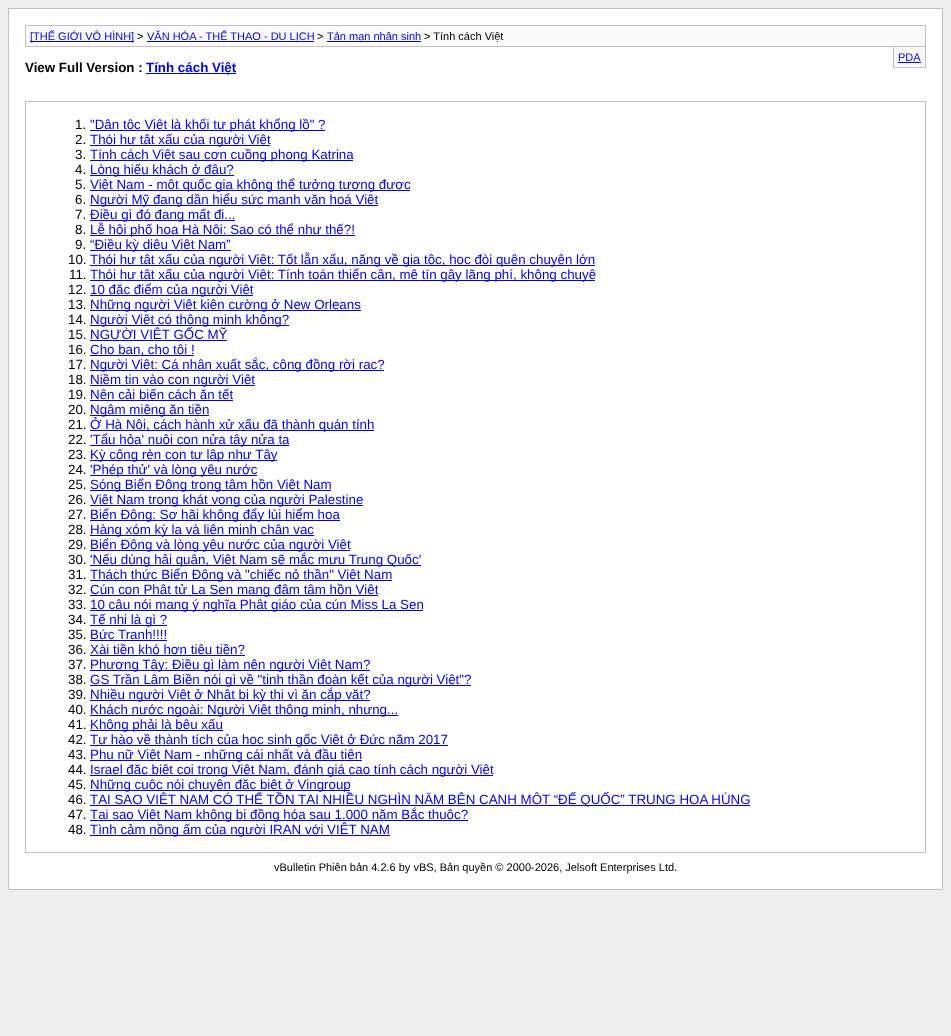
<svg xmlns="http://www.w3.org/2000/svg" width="951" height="1036">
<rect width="100%" height="100%" fill="#eee"/>
<rect x="8.5" y="8.5" width="934" height="881" fill="#fff" stroke="#c0c0c0"/>
<rect x="25.5" y="25.5" width="900" height="21" fill="#f9f9f9" stroke="#c0c0c0"/>
<rect x="30" y="41" width="104" height="1" fill="#00e"/>
<text x="30" y="40" style="font-family:Liberation Sans;font-size:11px;fill:#00e">[THẾ GIỚI VÔ HÌNH]</text>
<text x="137" y="40" style="font-family:Liberation Sans;font-size:11px;fill:#000">&gt;</text>
<rect x="147" y="41" width="167" height="1" fill="#00e"/>
<text x="147" y="40" style="font-family:Liberation Sans;font-size:11px;fill:#00e">VĂN HÓA - THỂ THAO - DU LỊCH</text>
<text x="317" y="40" style="font-family:Liberation Sans;font-size:11px;fill:#000">&gt;</text>
<rect x="327" y="41" width="94" height="1" fill="#00e"/>
<text x="327" y="40" style="font-family:Liberation Sans;font-size:11px;fill:#00e">Tản mạn nhân sinh</text>
<text x="424" y="40" style="font-family:Liberation Sans;font-size:11px;fill:#000">&gt; Tính cách Việt</text>
<rect x="894" y="47" width="31" height="20" fill="#f9f9f9"/>
<rect x="925" y="47" width="1" height="21" fill="#c0c0c0"/>
<rect x="893" y="67" width="33" height="1" fill="#c0c0c0"/>
<rect x="893" y="47" width="1" height="21" fill="#c0c0c0"/>
<text x="898" y="61" style="font-family:Liberation Sans;font-size:11px;fill:#00e">PDA</text>
<rect x="898" y="62" width="23" height="1" fill="#00e"/>
<text x="25" y="72" style="font-family:Liberation Sans;font-size:13.35px;font-weight:bold;fill:#000">View Full Version :</text>
<rect x="146" y="73" width="90" height="1" fill="#00e"/>
<text x="146" y="72" style="font-family:Liberation Sans;font-size:13.35px;font-weight:bold;fill:#00e">Tính cách Việt</text>
<rect x="25.5" y="101.5" width="900" height="751" fill="none" stroke="#c0c0c0"/>
<text x="75" y="129" style="font-family:Liberation Sans;font-size:13.35px;fill:#000">1.</text>
<rect x="90" y="130" width="235" height="1" fill="#00e"/>
<text x="90" y="129" style="font-family:Liberation Sans;font-size:13.35px;fill:#00e">"Dân tộc Việt là khối tự phát khổng lồ" ?</text>
<text x="75" y="144" style="font-family:Liberation Sans;font-size:13.35px;fill:#000">2.</text>
<rect x="90" y="145" width="180" height="1" fill="#00e"/>
<text x="90" y="144" style="font-family:Liberation Sans;font-size:13.35px;fill:#00e">Thói hư tật xấu của người Việt</text>
<text x="75" y="159" style="font-family:Liberation Sans;font-size:13.35px;fill:#000">3.</text>
<rect x="90" y="160" width="263" height="1" fill="#00e"/>
<text x="90" y="159" style="font-family:Liberation Sans;font-size:13.35px;fill:#00e">Tính cách Việt sau cơn cuồng phong Katrina</text>
<text x="75" y="174" style="font-family:Liberation Sans;font-size:13.35px;fill:#000">4.</text>
<rect x="90" y="175" width="144" height="1" fill="#00e"/>
<text x="90" y="174" style="font-family:Liberation Sans;font-size:13.35px;fill:#00e">Lòng hiếu khách ở đâu?</text>
<text x="75" y="189" style="font-family:Liberation Sans;font-size:13.35px;fill:#000">5.</text>
<rect x="90" y="190" width="320" height="1" fill="#00e"/>
<text x="90" y="189" style="font-family:Liberation Sans;font-size:13.35px;fill:#00e">Việt Nam - một quốc gia không thể tưởng tượng được</text>
<text x="75" y="204" style="font-family:Liberation Sans;font-size:13.35px;fill:#000">6.</text>
<rect x="90" y="205" width="288" height="1" fill="#00e"/>
<text x="90" y="204" style="font-family:Liberation Sans;font-size:13.35px;fill:#00e">Người Mỹ đang dần hiểu sức mạnh văn hoá Việt</text>
<text x="75" y="219" style="font-family:Liberation Sans;font-size:13.35px;fill:#000">7.</text>
<rect x="90" y="220" width="145" height="1" fill="#00e"/>
<text x="90" y="219" style="font-family:Liberation Sans;font-size:13.35px;fill:#00e">Điều gì đó đang mất đi...</text>
<text x="75" y="234" style="font-family:Liberation Sans;font-size:13.35px;fill:#000">8.</text>
<rect x="90" y="235" width="265" height="1" fill="#00e"/>
<text x="90" y="234" style="font-family:Liberation Sans;font-size:13.35px;fill:#00e">Lễ hội phố hoa Hà Nội: Sao có thể như thế?!</text>
<text x="75" y="249" style="font-family:Liberation Sans;font-size:13.35px;fill:#000">9.</text>
<rect x="90" y="250" width="141" height="1" fill="#00e"/>
<text x="90" y="249" style="font-family:Liberation Sans;font-size:13.35px;fill:#00e">“Điều kỳ diệu Việt Nam”</text>
<text x="68" y="264" style="font-family:Liberation Sans;font-size:13.35px;fill:#000">10.</text>
<rect x="90" y="265" width="505" height="1" fill="#00e"/>
<text x="90" y="264" style="font-family:Liberation Sans;font-size:13.35px;fill:#00e">Thói hư tật xấu của người Việt: Tốt lẫn xấu, nặng về gia tộc, học đòi quên chuyện lớn</text>
<text x="69" y="279" style="font-family:Liberation Sans;font-size:13.35px;fill:#000">11.</text>
<rect x="90" y="280" width="505" height="1" fill="#00e"/>
<text x="90" y="279" style="font-family:Liberation Sans;font-size:13.35px;fill:#00e">Thói hư tật xấu của người Việt: Tính toán thiển cận, mê tín gây lãng phí, không chuyê</text>
<text x="68" y="294" style="font-family:Liberation Sans;font-size:13.35px;fill:#000">12.</text>
<rect x="90" y="295" width="163" height="1" fill="#00e"/>
<text x="90" y="294" style="font-family:Liberation Sans;font-size:13.35px;fill:#00e">10 đặc điểm của người Việt</text>
<text x="68" y="309" style="font-family:Liberation Sans;font-size:13.35px;fill:#000">13.</text>
<rect x="90" y="310" width="271" height="1" fill="#00e"/>
<text x="90" y="309" style="font-family:Liberation Sans;font-size:13.35px;fill:#00e">Những người Việt kiên cường ở New Orleans</text>
<text x="68" y="324" style="font-family:Liberation Sans;font-size:13.35px;fill:#000">14.</text>
<rect x="90" y="325" width="199" height="1" fill="#00e"/>
<text x="90" y="324" style="font-family:Liberation Sans;font-size:13.35px;fill:#00e">Người Việt có thông minh không?</text>
<text x="68" y="339" style="font-family:Liberation Sans;font-size:13.35px;fill:#000">15.</text>
<rect x="90" y="340" width="137" height="1" fill="#00e"/>
<text x="90" y="339" style="font-family:Liberation Sans;font-size:13.35px;fill:#00e">NGƯỜI VIỆT GỐC MỸ</text>
<text x="68" y="354" style="font-family:Liberation Sans;font-size:13.35px;fill:#000">16.</text>
<rect x="90" y="355" width="104" height="1" fill="#00e"/>
<text x="90" y="354" style="font-family:Liberation Sans;font-size:13.35px;fill:#00e">Cho bạn, cho tôi !</text>
<text x="68" y="369" style="font-family:Liberation Sans;font-size:13.35px;fill:#000">17.</text>
<rect x="90" y="370" width="294" height="1" fill="#00e"/>
<text x="90" y="369" style="font-family:Liberation Sans;font-size:13.35px;fill:#00e">Người Việt: Cá nhân xuất sắc, cộng đồng rời rạc?</text>
<text x="68" y="384" style="font-family:Liberation Sans;font-size:13.35px;fill:#000">18.</text>
<rect x="90" y="385" width="165" height="1" fill="#00e"/>
<text x="90" y="384" style="font-family:Liberation Sans;font-size:13.35px;fill:#00e">Niềm tin vào con người Việt</text>
<text x="68" y="399" style="font-family:Liberation Sans;font-size:13.35px;fill:#000">19.</text>
<text x="90" y="399" style="font-family:Liberation Sans;font-size:13.35px;fill:#00e">Nên cải biến cách ăn tết</text>
<rect x="90" y="400" width="143" height="1" fill="#00e"/>
<text x="68" y="414" style="font-family:Liberation Sans;font-size:13.35px;fill:#000">20.</text>
<rect x="90" y="415" width="119" height="1" fill="#00e"/>
<text x="90" y="414" style="font-family:Liberation Sans;font-size:13.35px;fill:#00e">Ngậm miệng ăn tiền</text>
<text x="68" y="429" style="font-family:Liberation Sans;font-size:13.35px;fill:#000">21.</text>
<rect x="90" y="430" width="284" height="1" fill="#00e"/>
<text x="90" y="429" style="font-family:Liberation Sans;font-size:13.35px;fill:#00e">Ở Hà Nội, cách hành xử xấu đã thành quán tính</text>
<text x="68" y="444" style="font-family:Liberation Sans;font-size:13.35px;fill:#000">22.</text>
<rect x="90" y="445" width="199" height="1" fill="#00e"/>
<text x="90" y="444" style="font-family:Liberation Sans;font-size:13.35px;fill:#00e">'Tẩu hỏa' nuôi con nửa tây nửa ta</text>
<text x="68" y="459" style="font-family:Liberation Sans;font-size:13.35px;fill:#000">23.</text>
<rect x="90" y="460" width="187" height="1" fill="#00e"/>
<text x="90" y="459" style="font-family:Liberation Sans;font-size:13.35px;fill:#00e">Kỳ công rèn con tự lập như Tây</text>
<text x="68" y="474" style="font-family:Liberation Sans;font-size:13.35px;fill:#000">24.</text>
<rect x="90" y="475" width="167" height="1" fill="#00e"/>
<text x="90" y="474" style="font-family:Liberation Sans;font-size:13.35px;fill:#00e">'Phép thử' và lòng yêu nước</text>
<text x="68" y="489" style="font-family:Liberation Sans;font-size:13.35px;fill:#000">25.</text>
<rect x="90" y="490" width="241" height="1" fill="#00e"/>
<text x="90" y="489" style="font-family:Liberation Sans;font-size:13.35px;fill:#00e">Sóng Biển Đông trong tâm hồn Việt Nam</text>
<text x="68" y="504" style="font-family:Liberation Sans;font-size:13.35px;fill:#000">26.</text>
<rect x="90" y="505" width="273" height="1" fill="#00e"/>
<text x="90" y="504" style="font-family:Liberation Sans;font-size:13.35px;fill:#00e">Việt Nam trong khát vọng của người Palestine</text>
<text x="68" y="519" style="font-family:Liberation Sans;font-size:13.35px;fill:#000">27.</text>
<rect x="90" y="520" width="250" height="1" fill="#00e"/>
<text x="90" y="519" style="font-family:Liberation Sans;font-size:13.35px;fill:#00e">Biển Đông: Sợ hãi không đẩy lùi hiểm họa</text>
<text x="68" y="534" style="font-family:Liberation Sans;font-size:13.35px;fill:#000">28.</text>
<rect x="90" y="535" width="224" height="1" fill="#00e"/>
<text x="90" y="534" style="font-family:Liberation Sans;font-size:13.35px;fill:#00e">Hàng xóm kỳ lạ và liên minh chân vạc</text>
<text x="68" y="549" style="font-family:Liberation Sans;font-size:13.35px;fill:#000">29.</text>
<rect x="90" y="550" width="260" height="1" fill="#00e"/>
<text x="90" y="549" style="font-family:Liberation Sans;font-size:13.35px;fill:#00e">Biển Đông và lòng yêu nước của người Việt</text>
<text x="68" y="564" style="font-family:Liberation Sans;font-size:13.35px;fill:#000">30.</text>
<rect x="90" y="565" width="331" height="1" fill="#00e"/>
<text x="90" y="564" style="font-family:Liberation Sans;font-size:13.35px;fill:#00e">'Nếu dùng hải quân, Việt Nam sẽ mắc mưu Trung Quốc'</text>
<text x="68" y="579" style="font-family:Liberation Sans;font-size:13.35px;fill:#000">31.</text>
<rect x="90" y="580" width="302" height="1" fill="#00e"/>
<text x="90" y="579" style="font-family:Liberation Sans;font-size:13.35px;fill:#00e">Thách thức Biển Đông và "chiếc nỏ thần" Việt Nam</text>
<text x="68" y="594" style="font-family:Liberation Sans;font-size:13.35px;fill:#000">32.</text>
<rect x="90" y="595" width="288" height="1" fill="#00e"/>
<text x="90" y="594" style="font-family:Liberation Sans;font-size:13.35px;fill:#00e">Cún con Phật tử La Sen mang đậm tâm hồn Việt</text>
<text x="68" y="609" style="font-family:Liberation Sans;font-size:13.35px;fill:#000">33.</text>
<rect x="90" y="610" width="333" height="1" fill="#00e"/>
<text x="90" y="609" style="font-family:Liberation Sans;font-size:13.35px;fill:#00e">10 câu nói mang ý nghĩa Phật giáo của cún Miss La Sen</text>
<text x="68" y="624" style="font-family:Liberation Sans;font-size:13.35px;fill:#000">34.</text>
<rect x="90" y="625" width="77" height="1" fill="#00e"/>
<text x="90" y="624" style="font-family:Liberation Sans;font-size:13.35px;fill:#00e">Tế nhị là gì ?</text>
<text x="68" y="639" style="font-family:Liberation Sans;font-size:13.35px;fill:#000">35.</text>
<text x="90" y="639" style="font-family:Liberation Sans;font-size:13.35px;fill:#00e">Bức Tranh!!!!</text>
<rect x="90" y="640" width="77" height="1" fill="#00e"/>
<text x="68" y="654" style="font-family:Liberation Sans;font-size:13.35px;fill:#000">36.</text>
<text x="90" y="654" style="font-family:Liberation Sans;font-size:13.35px;fill:#00e">Xài tiền khó hơn tiêu tiền?</text>
<rect x="90" y="655" width="155" height="1" fill="#00e"/>
<text x="68" y="669" style="font-family:Liberation Sans;font-size:13.35px;fill:#000">37.</text>
<rect x="90" y="670" width="280" height="1" fill="#00e"/>
<text x="90" y="669" style="font-family:Liberation Sans;font-size:13.35px;fill:#00e">Phương Tây: Điều gì làm nên người Việt Nam?</text>
<text x="68" y="684" style="font-family:Liberation Sans;font-size:13.35px;fill:#000">38.</text>
<rect x="90" y="685" width="381" height="1" fill="#00e"/>
<text x="90" y="684" style="font-family:Liberation Sans;font-size:13.35px;fill:#00e">GS Trần Lâm Biền nói gì về "tinh thần đoàn kết của người Việt"?</text>
<text x="68" y="699" style="font-family:Liberation Sans;font-size:13.35px;fill:#000">39.</text>
<rect x="90" y="700" width="280" height="1" fill="#00e"/>
<text x="90" y="699" style="font-family:Liberation Sans;font-size:13.35px;fill:#00e">Nhiều người Việt ở Nhật bị kỳ thị vì ăn cắp vặt?</text>
<text x="68" y="714" style="font-family:Liberation Sans;font-size:13.35px;fill:#000">40.</text>
<rect x="90" y="715" width="308" height="1" fill="#00e"/>
<text x="90" y="714" style="font-family:Liberation Sans;font-size:13.35px;fill:#00e">Khách nước ngoài: Người Việt thông minh, nhưng...</text>
<text x="68" y="729" style="font-family:Liberation Sans;font-size:13.35px;fill:#000">41.</text>
<rect x="90" y="730" width="133" height="1" fill="#00e"/>
<text x="90" y="729" style="font-family:Liberation Sans;font-size:13.35px;fill:#00e">Không phải là bêu xấu</text>
<text x="68" y="744" style="font-family:Liberation Sans;font-size:13.35px;fill:#000">42.</text>
<rect x="90" y="745" width="358" height="1" fill="#00e"/>
<text x="90" y="744" style="font-family:Liberation Sans;font-size:13.35px;fill:#00e">Tự hào về thành tích của học sinh gốc Việt ở Đức năm 2017</text>
<text x="68" y="759" style="font-family:Liberation Sans;font-size:13.35px;fill:#000">43.</text>
<rect x="90" y="760" width="272" height="1" fill="#00e"/>
<text x="90" y="759" style="font-family:Liberation Sans;font-size:13.35px;fill:#00e">Phụ nữ Việt Nam - những cái nhất và đầu tiên</text>
<text x="68" y="774" style="font-family:Liberation Sans;font-size:13.35px;fill:#000">44.</text>
<rect x="90" y="775" width="403" height="1" fill="#00e"/>
<text x="90" y="774" style="font-family:Liberation Sans;font-size:13.35px;fill:#00e">Israel đặc biệt coi trọng Việt Nam, đánh giá cao tính cách người Việt</text>
<text x="68" y="789" style="font-family:Liberation Sans;font-size:13.35px;fill:#000">45.</text>
<rect x="90" y="790" width="260" height="1" fill="#00e"/>
<text x="90" y="789" style="font-family:Liberation Sans;font-size:13.35px;fill:#00e">Những cuộc nói chuyện đặc biệt ở Vingroup</text>
<text x="68" y="804" style="font-family:Liberation Sans;font-size:13.35px;fill:#000">46.</text>
<rect x="90" y="805" width="660" height="1" fill="#00e"/>
<text x="90" y="804" style="font-family:Liberation Sans;font-size:13.35px;fill:#00e">TẠI SAO VIỆT NAM CÓ THỂ TỒN TẠI NHIỀU NGHÌN NĂM BÊN CẠNH MỘT “ĐẾ QUỐC” TRUNG HOA HÙNG</text>
<text x="68" y="819" style="font-family:Liberation Sans;font-size:13.35px;fill:#000">47.</text>
<rect x="90" y="820" width="378" height="1" fill="#00e"/>
<text x="90" y="819" style="font-family:Liberation Sans;font-size:13.35px;fill:#00e">Tại sao Việt Nam không bị đồng hóa sau 1.000 năm Bắc thuộc?</text>
<text x="68" y="834" style="font-family:Liberation Sans;font-size:13.35px;fill:#000">48.</text>
<rect x="90" y="835" width="300" height="1" fill="#00e"/>
<text x="90" y="834" style="font-family:Liberation Sans;font-size:13.35px;fill:#00e">Tình cảm nồng ấm của người IRAN với VIỆT NAM</text>
<text x="274" y="871" style="font-family:Liberation Sans;font-size:11px;fill:#000">vBulletin Phiên bản 4.2.6 by vBS, Bản quyền © 2000-2026, Jelsoft Enterprises Ltd.</text>
</svg>
